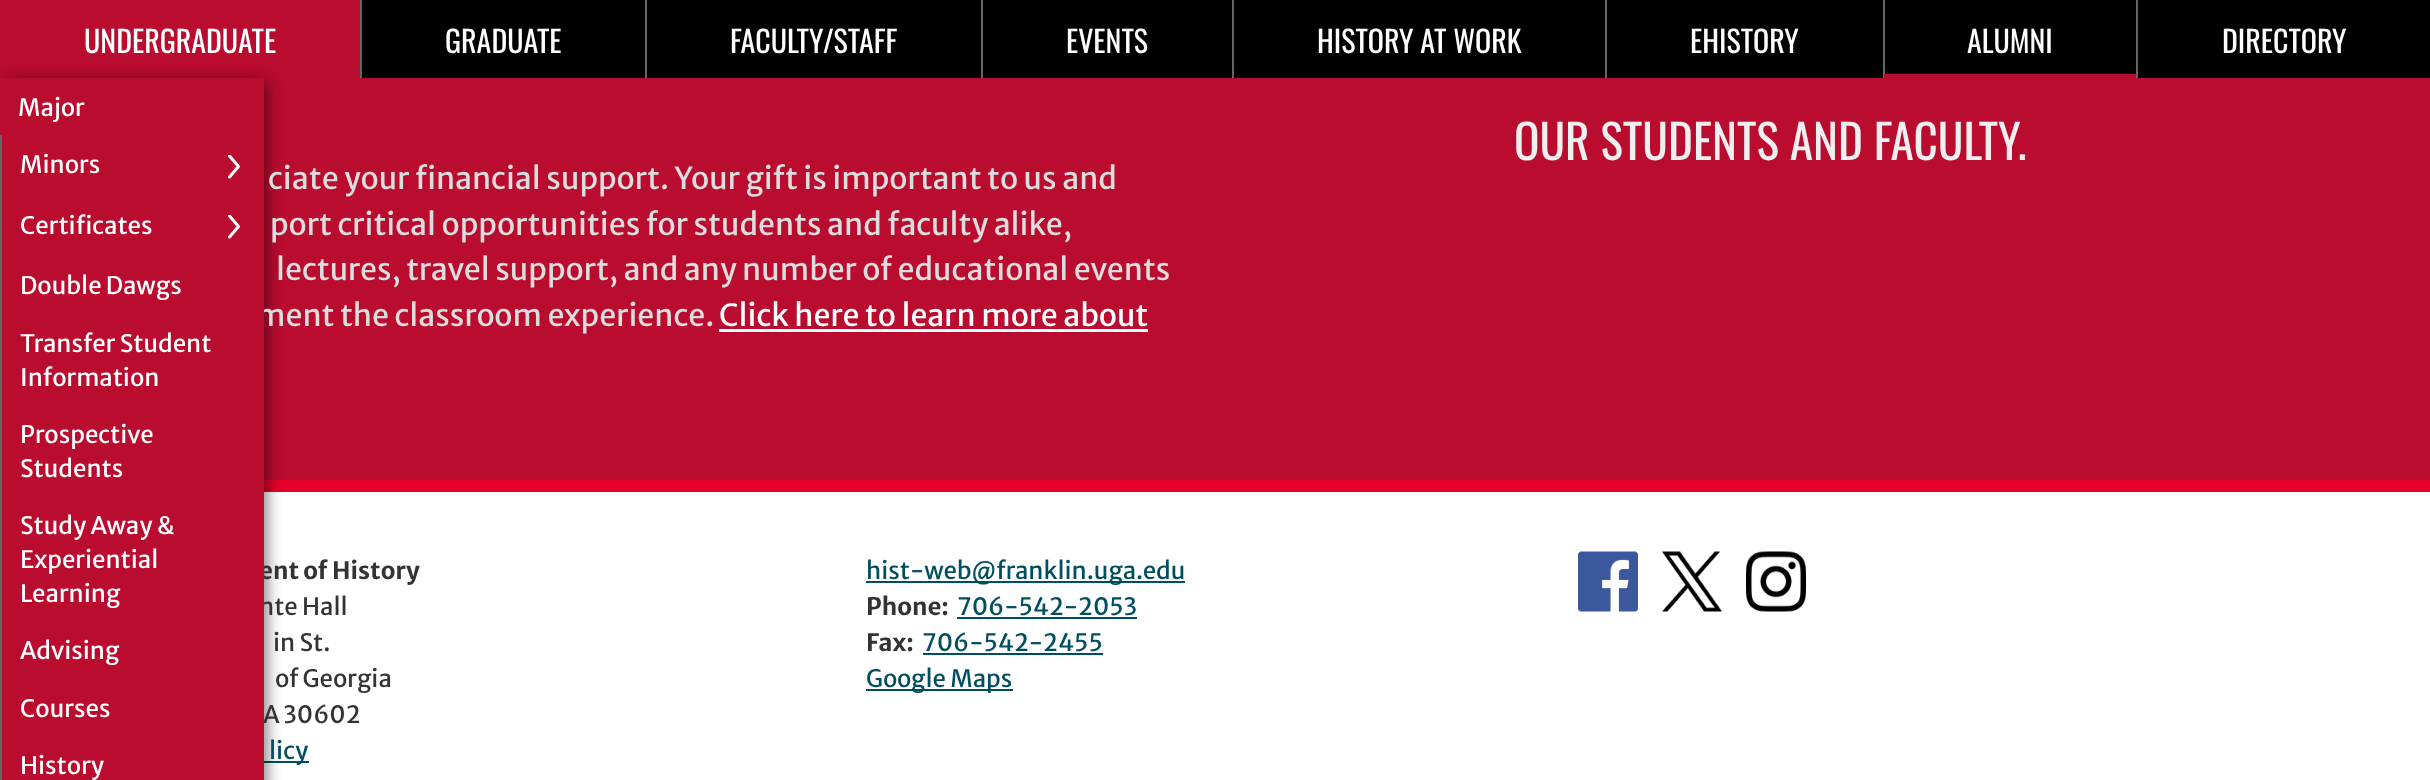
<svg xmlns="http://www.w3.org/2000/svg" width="2430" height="780">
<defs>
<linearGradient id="g1" gradientUnits="userSpaceOnUse" x1="180" y1="-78" x2="180" y2="78"><stop offset="0" stop-color="#950a26"/><stop offset="0.5" stop-color="#950a26"/><stop offset="0.5" stop-color="#ba0c2f"/></linearGradient>
<clipPath id="clip1"><rect x="228" y="155" width="36" height="24"/></clipPath>
<clipPath id="clip2"><rect x="228" y="215" width="36" height="24"/></clipPath>
</defs>
<rect width="100%" height="100%" fill="#fff"/>
<rect x="362" width="2068" height="78" fill="#000"/>
<rect width="360" height="78" fill="url(#g1)"/>
<text x="84" y="53" style="font-family:Oswald;font-size:30px;fill:#fff">UNDERGRADUATE</text>
<rect x="264" y="78" width="2166" height="402" fill="#ba0c2f"/>
<rect x="264" y="480" width="2166" height="12" fill="#e4002b"/>
<rect x="264" y="761" width="45" height="2" fill="#004e60"/>
<rect x="3" y="81" width="264" height="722" fill="#00000080" filter="blur(7.5px)"/>
<text x="256" y="326" style="font-family:Merriweather Sans;font-size:30.4px;fill:#ddd">ment the classroom experience.</text>
<text x="259" y="579" style="font-family:Merriweather Sans;font-size:24px;font-weight:bold;fill:#333">ent of History</text>
<text x="259" y="615" style="font-family:Merriweather Sans;font-size:24px;fill:#333">nte Hall</text>
<text x="263" y="723" style="font-family:Merriweather Sans;font-size:24px;fill:#333">A 30602</text>
<rect y="78" width="264" height="702" fill="#ba0c2f"/>
<text x="18" y="116" style="font-family:Merriweather Sans;font-size:24px;fill:#fff">Major</text>
<rect y="135" width="2" height="645" fill="#666"/>
<text x="20" y="173" style="font-family:Merriweather Sans;font-size:24px;fill:#fff">Minors</text>
<g clip-path="url(#clip1)">
<path d="M229.5 156l9 10.5l-9 10.5" fill="none" stroke="#fff" stroke-width="3" stroke-linecap="round" stroke-linejoin="round"/>
</g>
<text x="20" y="234" style="font-family:Merriweather Sans;font-size:24px;fill:#fff">Certificates</text>
<g clip-path="url(#clip2)">
<path d="M229.5 216l9 10.5l-9 10.5" fill="none" stroke="#fff" stroke-width="3" stroke-linecap="round" stroke-linejoin="round"/>
</g>
<text x="20" y="294" style="font-family:Merriweather Sans;font-size:24px;fill:#fff">Double Dawgs</text>
<text x="20" y="352" style="font-family:Merriweather Sans;font-size:24px;fill:#fff">Transfer Student</text>
<text x="20" y="386" style="font-family:Merriweather Sans;font-size:24px;fill:#fff">Information</text>
<text x="20" y="443" style="font-family:Merriweather Sans;font-size:24px;fill:#fff">Prospective</text>
<text x="20" y="477" style="font-family:Merriweather Sans;font-size:24px;fill:#fff">Students</text>
<text x="20" y="534" style="font-family:Merriweather Sans;font-size:24px;fill:#fff">Study Away &amp;</text>
<text x="20" y="568" style="font-family:Merriweather Sans;font-size:24px;fill:#fff">Experiential</text>
<text x="20" y="602" style="font-family:Merriweather Sans;font-size:24px;fill:#fff">Learning</text>
<text x="20" y="659" style="font-family:Merriweather Sans;font-size:24px;fill:#fff">Advising</text>
<text x="20" y="717" style="font-family:Merriweather Sans;font-size:24px;fill:#fff">Courses</text>
<text x="20" y="774" style="font-family:Merriweather Sans;font-size:24px;fill:#fff">History</text>
<rect x="360" width="2" height="78" fill="#666"/>
<text x="445" y="53" style="font-family:Oswald;font-size:30px;fill:#fff">GRADUATE</text>
<rect x="645" width="2" height="78" fill="#666"/>
<text x="730" y="53" style="font-family:Oswald;font-size:30px;fill:#fff">FACULTY/STAFF</text>
<rect x="981" width="2" height="78" fill="#666"/>
<text x="1066" y="53" style="font-family:Oswald;font-size:30px;fill:#fff">EVENTS</text>
<rect x="1232" width="2" height="78" fill="#666"/>
<text x="1317" y="53" style="font-family:Oswald;font-size:30px;fill:#fff">HISTORY AT WORK</text>
<rect x="1605" width="2" height="78" fill="#666"/>
<text x="1690" y="53" style="font-family:Oswald;font-size:30px;fill:#fff">EHISTORY</text>
<rect x="1883" width="2" height="78" fill="#666"/>
<rect x="1884" y="74" width="252" height="4" fill="#ba0c2f"/>
<text x="1967" y="53" style="font-family:Oswald;font-size:30px;fill:#fff">ALUMNI</text>
<rect x="2136" width="2" height="78" fill="#666"/>
<text x="2222" y="53" style="font-family:Oswald;font-size:30px;fill:#fff">DIRECTORY</text>
<text x="1514" y="160" style="font-family:Oswald;font-size:47.25px;fill:#efefef">OUR STUDENTS AND FACULTY.</text>
<text x="268" y="189" style="font-family:Merriweather Sans;font-size:30.4px;fill:#ddd">ciate your financial support. Your gift is important to us and</text>
<text x="270" y="235" style="font-family:Merriweather Sans;font-size:30.4px;fill:#ddd">port critical opportunities for students and faculty alike,</text>
<text x="276" y="280" style="font-family:Merriweather Sans;font-size:30.4px;fill:#ddd">lectures, travel support, and any number of educational events</text>
<text x="719" y="326" style="font-family:Merriweather Sans;font-size:30.4px;fill:#fff">Click here to learn more about</text>
<rect x="719" y="329" width="429" height="3" fill="#fff"/>
<text x="273" y="651" style="font-family:Merriweather Sans;font-size:24px;fill:#333">in St.</text>
<text x="275" y="687" style="font-family:Merriweather Sans;font-size:24px;fill:#333">of Georgia</text>
<text x="269" y="759" style="font-family:Merriweather Sans;font-size:24px;fill:#004e60">licy</text>
<rect x="866" y="581" width="319" height="2" fill="#004e60"/>
<text x="866" y="579" style="font-family:Merriweather Sans;font-size:24px;fill:#004e60">hist-web@franklin.uga.edu</text>
<text x="866" y="615" style="font-family:Merriweather Sans;font-size:24px;font-weight:bold;fill:#333">Phone:</text>
<text x="957" y="615" style="font-family:Merriweather Sans;font-size:24px;fill:#004e60">706-542-2053</text>
<rect x="957" y="617" width="180" height="2" fill="#004e60"/>
<text x="866" y="651" style="font-family:Merriweather Sans;font-size:24px;font-weight:bold;fill:#333">Fax:</text>
<text x="922" y="651" style="font-family:Merriweather Sans;font-size:24px;fill:#004e60">706-542-2455</text>
<rect x="923" y="653" width="180" height="2" fill="#004e60"/>
<rect x="866" y="689" width="147" height="2" fill="#004e60"/>
<text x="866" y="687" style="font-family:Merriweather Sans;font-size:24px;fill:#004e60">Google Maps</text>
<image x="1578" y="551" width="60" height="61" href="media/1.png"/>
<image x="1662" y="551" width="60" height="61" href="media/2.png"/>
<image x="1746" y="551" width="60" height="61" href="media/3.png"/>
</svg>
